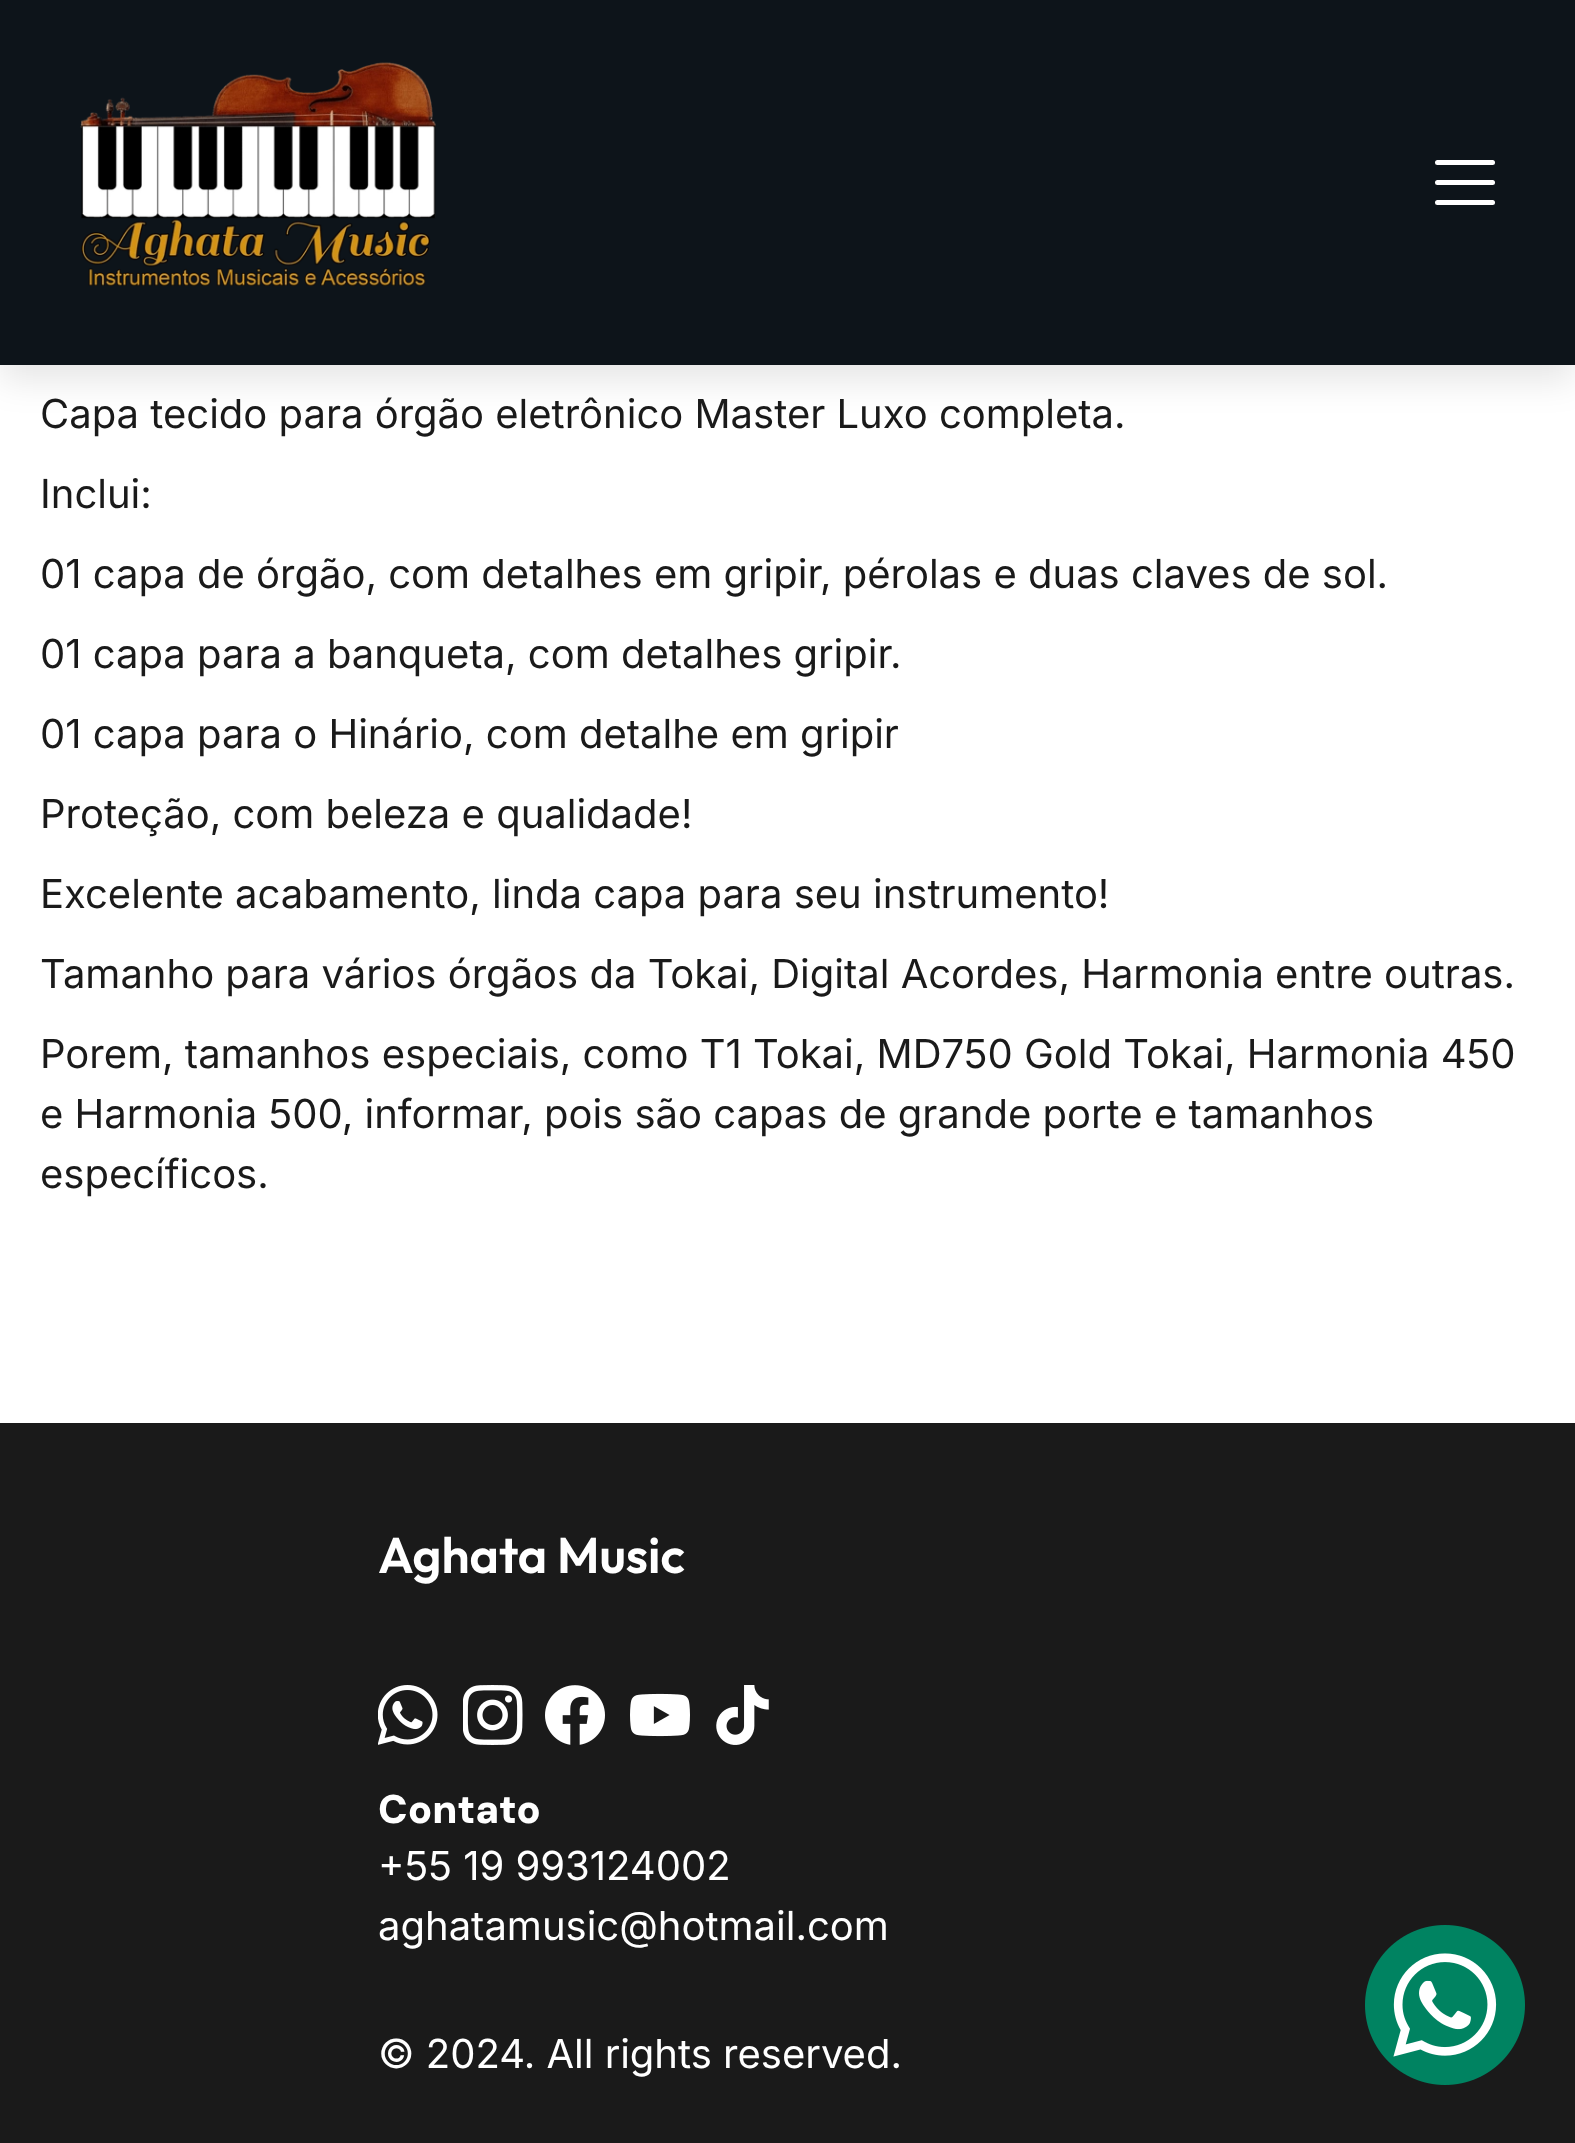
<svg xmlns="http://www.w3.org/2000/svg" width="1575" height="2143">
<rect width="100%" height="100%" fill="#fff"/>
<rect y="15" width="1575" height="365" fill="#0000001a" filter="blur(17.5px)"/>
<rect width="1575" height="365" fill="#0d141a"/>
<image x="80" y="62" width="356" height="224" href="media/1.png"/>
<rect x="1435" y="160" width="60" height="5" rx="2.5" fill="#fff"/>
<rect x="1435" y="180" width="60" height="5" rx="2.5" fill="#fff"/>
<rect x="1435" y="200" width="60" height="5" rx="2.5" fill="#fff"/>
<text x="40" y="428" style="font-family:Inter;font-size:40px;fill:#1a1a1a">Capa tecido para órgão eletrônico Master Luxo completa.</text>
<text x="40" y="508" style="font-family:Inter;font-size:40px;fill:#1a1a1a">Inclui:</text>
<text x="40" y="588" style="font-family:Inter;font-size:40px;fill:#1a1a1a">01 capa de órgão, com detalhes em gripir, pérolas e duas claves de sol.</text>
<text x="40" y="668" style="font-family:Inter;font-size:40px;fill:#1a1a1a">01 capa para a banqueta, com detalhes gripir.</text>
<text x="40" y="748" style="font-family:Inter;font-size:40px;fill:#1a1a1a">01 capa para o Hinário, com detalhe em gripir</text>
<text x="40" y="828" style="font-family:Inter;font-size:40px;fill:#1a1a1a">Proteção, com beleza e qualidade!</text>
<text x="40" y="908" style="font-family:Inter;font-size:40px;fill:#1a1a1a">Excelente acabamento, linda capa para seu instrumento!</text>
<text x="40" y="988" style="font-family:Inter;font-size:40px;fill:#1a1a1a">Tamanho para vários órgãos da Tokai, Digital Acordes, Harmonia entre outras.</text>
<text x="40" y="1068" style="font-family:Inter;font-size:40px;fill:#1a1a1a">Porem, tamanhos especiais, como T1 Tokai, MD750 Gold Tokai, Harmonia 450</text>
<text x="40" y="1128" style="font-family:Inter;font-size:40px;fill:#1a1a1a">e Harmonia 500, informar, pois são capas de grande porte e tamanhos</text>
<text x="40" y="1188" style="font-family:Inter;font-size:40px;fill:#1a1a1a">específicos.</text>
<rect y="1423" width="1575" height="720" fill="#1a1a1a"/>
<text x="378" y="1573" style="font-family:Outfit;font-size:50px;font-weight:100;fill:#fff">Aghata Music</text>
<image x="378" y="1685" width="60" height="60" href="media/2.png"/>
<image x="463" y="1685" width="60" height="60" href="media/3.png"/>
<image x="545" y="1685" width="60" height="60" href="media/4.png"/>
<image x="630" y="1693" width="60" height="44" href="media/5.png"/>
<image x="716" y="1685" width="53" height="60" href="media/6.png"/>
<text x="378" y="1823" style="font-family:DM Sans;font-size:40px;font-weight:900;fill:#fff">Contato</text>
<text x="378" y="1880" style="font-family:Inter;font-size:40px;fill:#fff">+55 19 993124002</text>
<text x="378" y="1940" style="font-family:Inter;font-size:40px;fill:#fff">aghatamusic@hotmail.com</text>
<text x="378" y="2068" style="font-family:Inter;font-size:40px;fill:#fff">© 2024. All rights reserved.</text>
<image x="1365" y="1925" width="160" height="160" href="media/7.png"/>
</svg>
